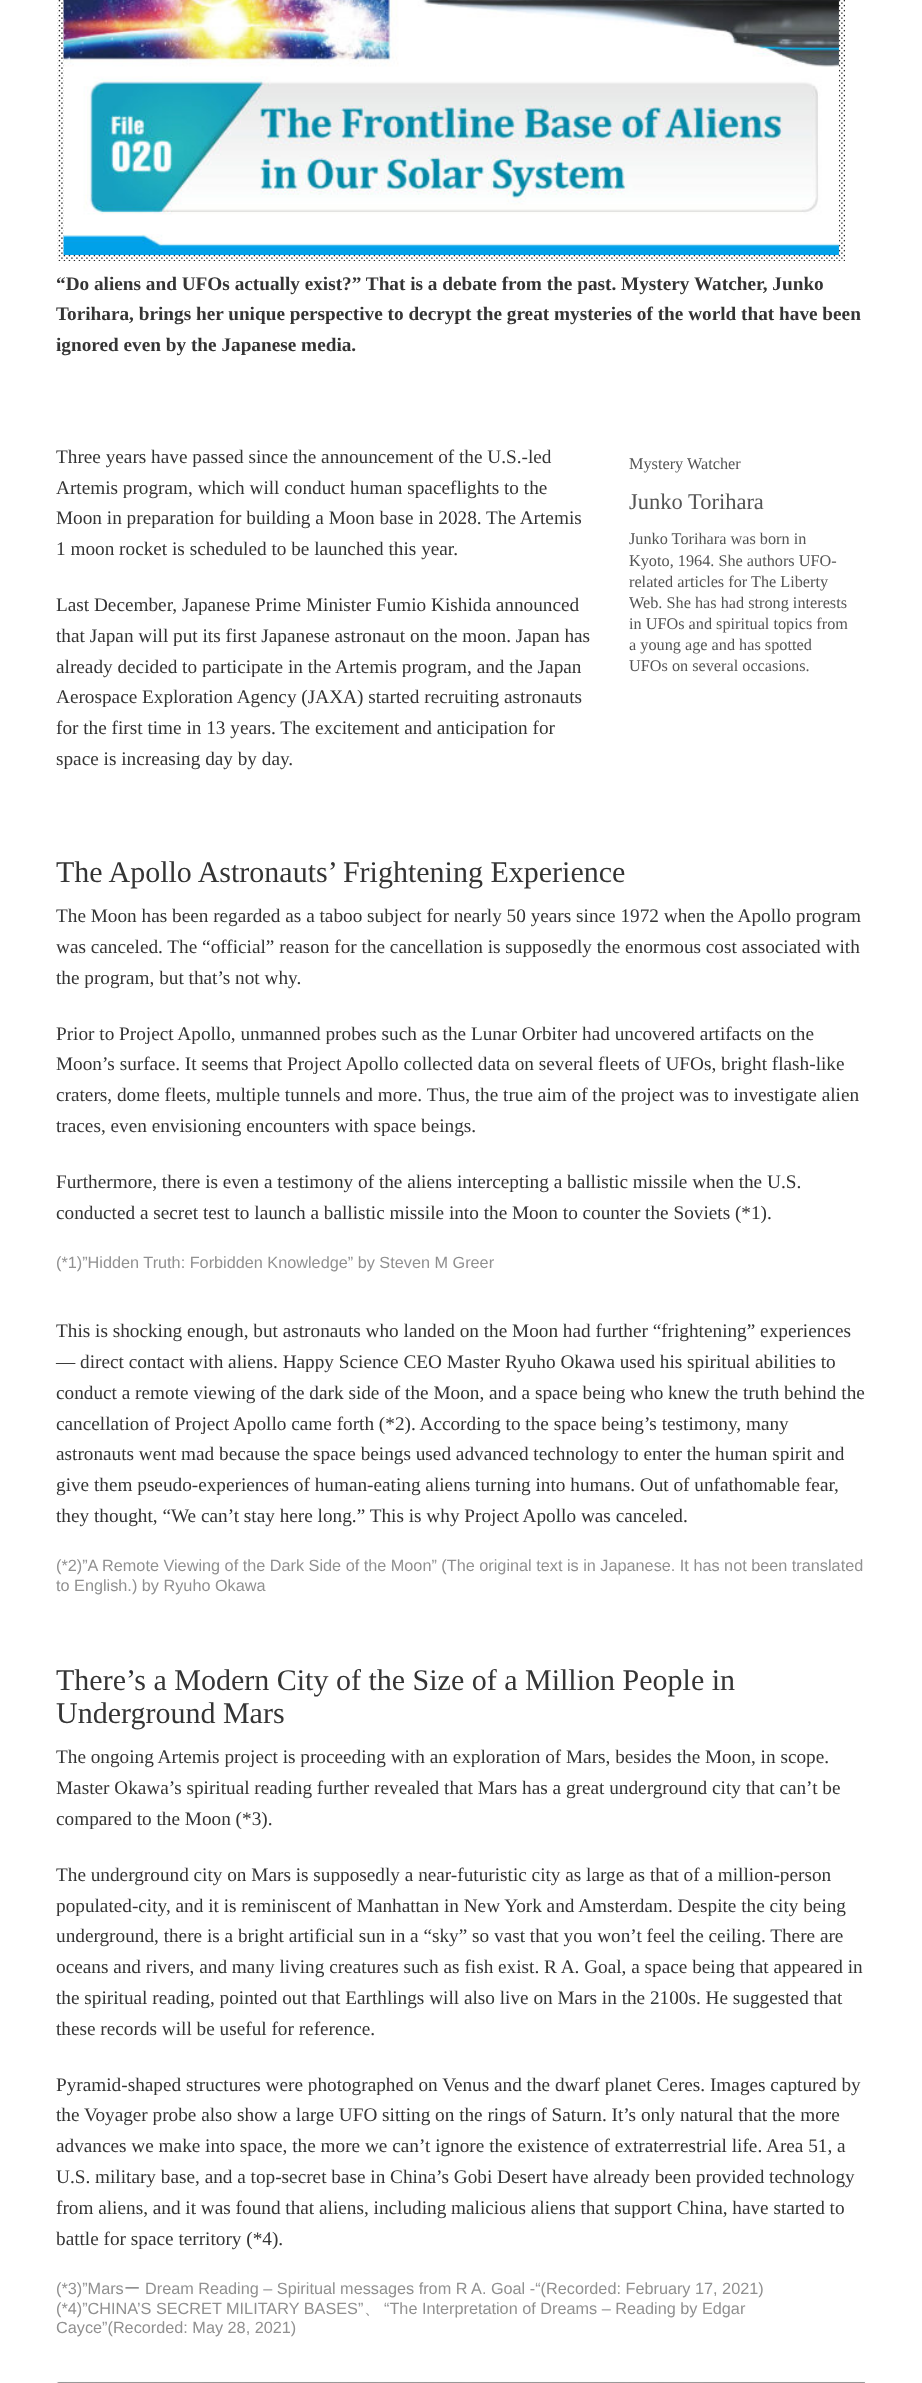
<svg xmlns="http://www.w3.org/2000/svg" width="922" height="2383">
<rect width="100%" height="100%" fill="#fff"/>
<image x="57" y="0" width="788" height="262" href="media/1.png"/>
<image x="63" y="0" width="776" height="255" href="media/2.png"/>
<text x="56" y="290" style="font-family:Liberation Serif;font-size:19.25px;font-weight:bold;fill:#353535">“Do aliens and UFOs actually exist?” That is a debate from the past. Mystery Watcher, Junko</text>
<text x="56" y="320" style="font-family:Liberation Serif;font-size:19.25px;font-weight:bold;fill:#353535">Torihara, brings her unique perspective to decrypt the great mysteries of the world that have been</text>
<text x="56" y="351" style="font-family:Liberation Serif;font-size:19.25px;font-weight:bold;fill:#353535">ignored even by the Japanese media.</text>
<text x="56" y="463" style="font-family:Liberation Serif;font-size:19.25px;fill:#353535">Three years have passed since the announcement of the U.S.-led</text>
<text x="56" y="494" style="font-family:Liberation Serif;font-size:19.25px;fill:#353535">Artemis program, which will conduct human spaceflights to the</text>
<text x="56" y="524" style="font-family:Liberation Serif;font-size:19.25px;fill:#353535">Moon in preparation for building a Moon base in 2028. The Artemis</text>
<text x="56" y="555" style="font-family:Liberation Serif;font-size:19.25px;fill:#353535">1 moon rocket is scheduled to be launched this year.</text>
<text x="629" y="469" style="font-family:Liberation Serif;font-size:16.25px;fill:#555">Mystery Watcher</text>
<text x="629" y="509" style="font-family:Liberation Serif;font-size:22.5px;fill:#555">Junko Torihara</text>
<text x="629" y="544" style="font-family:Liberation Serif;font-size:16.25px;fill:#555">Junko Torihara was born in</text>
<text x="629" y="566" style="font-family:Liberation Serif;font-size:16.25px;fill:#555">Kyoto, 1964. She authors UFO-</text>
<text x="629" y="587" style="font-family:Liberation Serif;font-size:16.25px;fill:#555">related articles for The Liberty</text>
<text x="629" y="608" style="font-family:Liberation Serif;font-size:16.25px;fill:#555">Web. She has had strong interests</text>
<text x="629" y="629" style="font-family:Liberation Serif;font-size:16.25px;fill:#555">in UFOs and spiritual topics from</text>
<text x="629" y="650" style="font-family:Liberation Serif;font-size:16.25px;fill:#555">a young age and has spotted</text>
<text x="629" y="671" style="font-family:Liberation Serif;font-size:16.25px;fill:#555">UFOs on several occasions.</text>
<text x="56" y="611" style="font-family:Liberation Serif;font-size:19.25px;fill:#353535">Last December, Japanese Prime Minister Fumio Kishida announced</text>
<text x="56" y="642" style="font-family:Liberation Serif;font-size:19.25px;fill:#353535">that Japan will put its first Japanese astronaut on the moon. Japan has</text>
<text x="56" y="673" style="font-family:Liberation Serif;font-size:19.25px;fill:#353535">already decided to participate in the Artemis program, and the Japan</text>
<text x="56" y="703" style="font-family:Liberation Serif;font-size:19.25px;fill:#353535">Aerospace Exploration Agency (JAXA) started recruiting astronauts</text>
<text x="56" y="734" style="font-family:Liberation Serif;font-size:19.25px;fill:#353535">for the first time in 13 years. The excitement and anticipation for</text>
<text x="56" y="765" style="font-family:Liberation Serif;font-size:19.25px;fill:#353535">space is increasing day by day.</text>
<text x="56" y="882" style="font-family:Liberation Serif;font-size:30px;fill:#353535">The Apollo Astronauts’ Frightening Experience</text>
<text x="56" y="922" style="font-family:Liberation Serif;font-size:19.25px;fill:#353535">The Moon has been regarded as a taboo subject for nearly 50 years since 1972 when the Apollo program</text>
<text x="56" y="953" style="font-family:Liberation Serif;font-size:19.25px;fill:#353535">was canceled. The “official” reason for the cancellation is supposedly the enormous cost associated with</text>
<text x="56" y="984" style="font-family:Liberation Serif;font-size:19.25px;fill:#353535">the program, but that’s not why.</text>
<text x="56" y="1040" style="font-family:Liberation Serif;font-size:19.25px;fill:#353535">Prior to Project Apollo, unmanned probes such as the Lunar Orbiter had uncovered artifacts on the</text>
<text x="56" y="1070" style="font-family:Liberation Serif;font-size:19.25px;fill:#353535">Moon’s surface. It seems that Project Apollo collected data on several fleets of UFOs, bright flash-like</text>
<text x="56" y="1101" style="font-family:Liberation Serif;font-size:19.25px;fill:#353535">craters, dome fleets, multiple tunnels and more. Thus, the true aim of the project was to investigate alien</text>
<text x="56" y="1132" style="font-family:Liberation Serif;font-size:19.25px;fill:#353535">traces, even envisioning encounters with space beings.</text>
<text x="56" y="1188" style="font-family:Liberation Serif;font-size:19.25px;fill:#353535">Furthermore, there is even a testimony of the aliens intercepting a ballistic missile when the U.S.</text>
<text x="56" y="1219" style="font-family:Liberation Serif;font-size:19.25px;fill:#353535">conducted a secret test to launch a ballistic missile into the Moon to counter the Soviets (*1).</text>
<text x="56" y="1268" style="font-family:Liberation Sans;font-size:16.25px;fill:#909090">(*1)”Hidden Truth: Forbidden Knowledge” by Steven M Greer</text>
<text x="56" y="1337" style="font-family:Liberation Serif;font-size:19.25px;fill:#353535">This is shocking enough, but astronauts who landed on the Moon had further “frightening” experiences</text>
<text x="56" y="1368" style="font-family:Liberation Serif;font-size:19.25px;fill:#353535">— direct contact with aliens. Happy Science CEO Master Ryuho Okawa used his spiritual abilities to</text>
<text x="56" y="1399" style="font-family:Liberation Serif;font-size:19.25px;fill:#353535">conduct a remote viewing of the dark side of the Moon, and a space being who knew the truth behind the</text>
<text x="56" y="1430" style="font-family:Liberation Serif;font-size:19.25px;fill:#353535">cancellation of Project Apollo came forth (*2). According to the space being’s testimony, many</text>
<text x="56" y="1460" style="font-family:Liberation Serif;font-size:19.25px;fill:#353535">astronauts went mad because the space beings used advanced technology to enter the human spirit and</text>
<text x="56" y="1491" style="font-family:Liberation Serif;font-size:19.25px;fill:#353535">give them pseudo-experiences of human-eating aliens turning into humans. Out of unfathomable fear,</text>
<text x="56" y="1522" style="font-family:Liberation Serif;font-size:19.25px;fill:#353535">they thought, “We can’t stay here long.” This is why Project Apollo was canceled.</text>
<text x="56" y="1571" style="font-family:Liberation Sans;font-size:16.25px;fill:#909090">(*2)”A Remote Viewing of the Dark Side of the Moon” (The original text is in Japanese. It has not been translated</text>
<text x="56" y="1591" style="font-family:Liberation Sans;font-size:16.25px;fill:#909090">to English.) by Ryuho Okawa</text>
<text x="56" y="1690" style="font-family:Liberation Serif;font-size:30px;fill:#353535">There’s a Modern City of the Size of a Million People in</text>
<text x="56" y="1723" style="font-family:Liberation Serif;font-size:30px;fill:#353535">Underground Mars</text>
<text x="56" y="1763" style="font-family:Liberation Serif;font-size:19.25px;fill:#353535">The ongoing Artemis project is proceeding with an exploration of Mars, besides the Moon, in scope.</text>
<text x="56" y="1794" style="font-family:Liberation Serif;font-size:19.25px;fill:#353535">Master Okawa’s spiritual reading further revealed that Mars has a great underground city that can’t be</text>
<text x="56" y="1825" style="font-family:Liberation Serif;font-size:19.25px;fill:#353535">compared to the Moon (*3).</text>
<text x="56" y="1881" style="font-family:Liberation Serif;font-size:19.25px;fill:#353535">The underground city on Mars is supposedly a near-futuristic city as large as that of a million-person</text>
<text x="56" y="1912" style="font-family:Liberation Serif;font-size:19.25px;fill:#353535">populated-city, and it is reminiscent of Manhattan in New York and Amsterdam. Despite the city being</text>
<text x="56" y="1942" style="font-family:Liberation Serif;font-size:19.25px;fill:#353535">underground, there is a bright artificial sun in a “sky” so vast that you won’t feel the ceiling. There are</text>
<text x="56" y="1973" style="font-family:Liberation Serif;font-size:19.25px;fill:#353535">oceans and rivers, and many living creatures such as fish exist. R A. Goal, a space being that appeared in</text>
<text x="56" y="2004" style="font-family:Liberation Serif;font-size:19.25px;fill:#353535">the spiritual reading, pointed out that Earthlings will also live on Mars in the 2100s. He suggested that</text>
<text x="56" y="2035" style="font-family:Liberation Serif;font-size:19.25px;fill:#353535">these records will be useful for reference.</text>
<text x="56" y="2091" style="font-family:Liberation Serif;font-size:19.25px;fill:#353535">Pyramid-shaped structures were photographed on Venus and the dwarf planet Ceres. Images captured by</text>
<text x="56" y="2121" style="font-family:Liberation Serif;font-size:19.25px;fill:#353535">the Voyager probe also show a large UFO sitting on the rings of Saturn. It’s only natural that the more</text>
<text x="56" y="2152" style="font-family:Liberation Serif;font-size:19.25px;fill:#353535">advances we make into space, the more we can’t ignore the existence of extraterrestrial life. Area 51, a</text>
<text x="56" y="2183" style="font-family:Liberation Serif;font-size:19.25px;fill:#353535">U.S. military base, and a top-secret base in China’s Gobi Desert have already been provided technology</text>
<text x="56" y="2214" style="font-family:Liberation Serif;font-size:19.25px;fill:#353535">from aliens, and it was found that aliens, including malicious aliens that support China, have started to</text>
<text x="56" y="2245" style="font-family:Liberation Serif;font-size:19.25px;fill:#353535">battle for space territory (*4).</text>
<text x="56" y="2294" style="font-family:Liberation Sans;font-size:16.25px;fill:#909090">(*3)”Mars</text>
<text x="124" y="2294" style="font-family:WenQuanYi Zen Hei;font-size:16.25px;font-weight:500;fill:#909090">ー</text>
<text x="145" y="2294" style="font-family:Liberation Sans;font-size:16.25px;fill:#909090">Dream Reading – Spiritual messages from R A. Goal -“(Recorded: February 17, 2021)</text>
<text x="56" y="2314" style="font-family:Liberation Sans;font-size:16.25px;fill:#909090">(*4)”CHINA’S SECRET MILITARY BASES”</text>
<text x="364" y="2314" style="font-family:WenQuanYi Zen Hei;font-size:16.25px;font-weight:500;fill:#909090">、</text>
<text x="384" y="2314" style="font-family:Liberation Sans;font-size:16.25px;fill:#909090">“The Interpretation of Dreams – Reading by Edgar</text>
<text x="56" y="2333" style="font-family:Liberation Sans;font-size:16.25px;fill:#909090">Cayce”(Recorded: May 28, 2021)</text>
<rect x="56.5" y="2381.5" width="809" height="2" fill="none" stroke="#fcfcfc"/>
<image x="57" y="2382" width="808" height="1" href="media/3.png"/>
</svg>
